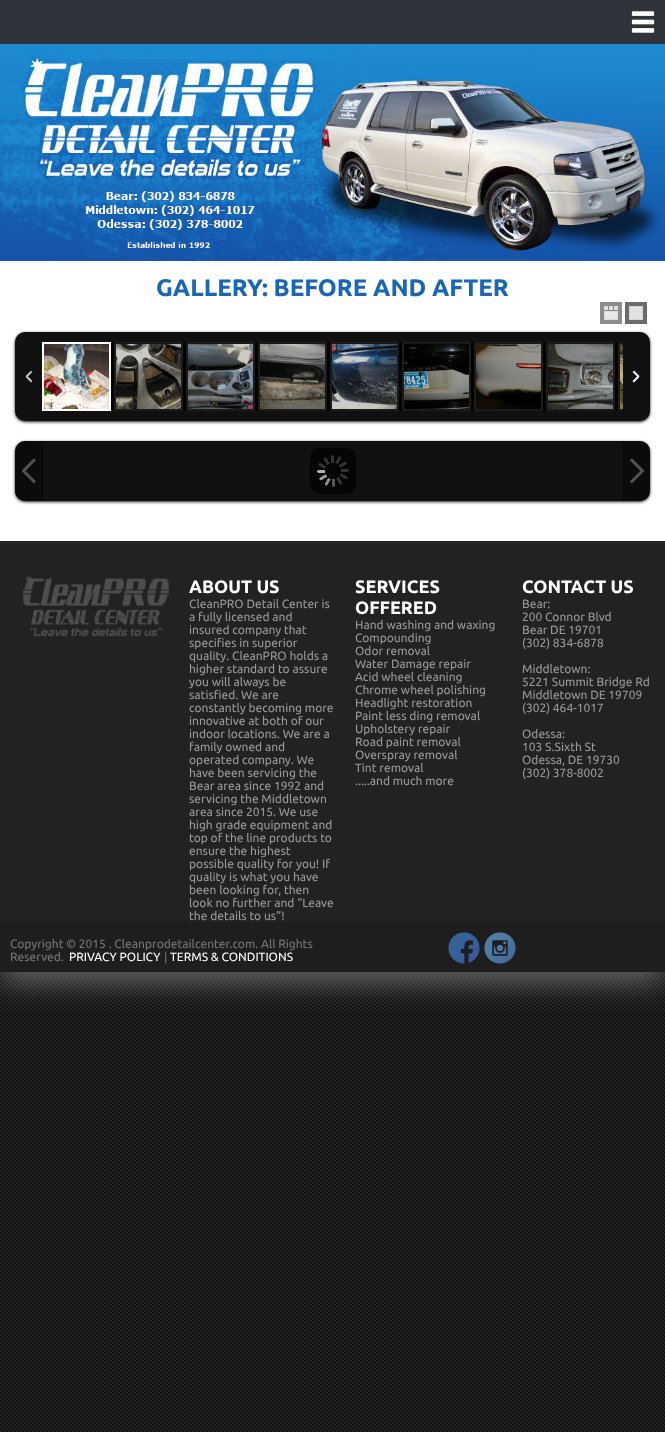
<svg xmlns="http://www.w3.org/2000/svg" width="665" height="1432">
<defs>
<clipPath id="clip1"><rect x="42" y="342" width="581" height="69"/></clipPath>
</defs>
<rect width="100%" height="100%" fill="#fff"/>
<image x="0" y="972" width="665" height="460" href="media/1.png"/>
<rect y="10" width="665" height="972" fill="#666" filter="blur(15px)"/>
<rect y="261" width="665" height="280" fill="#fff"/>
<rect width="665" height="44" fill="#2e343a"/>
<image x="631" y="11" width="24" height="22" href="media/2.png"/>
<image x="0" y="44" width="665" height="217" href="media/3.png"/>
<text x="156" y="296" style="font-family:Ubuntu;font-size:24px;font-weight:bold;fill:#1766b8">GALLERY: BEFORE AND AFTER</text>
<rect x="603" y="305" width="16" height="16" fill="#8c8c8c"/>
<image x="604" y="306" width="14" height="14" href="media/4.png"/>
<rect x="601.5" y="303.5" width="19" height="19" fill="none" stroke="#8c8c8c" stroke-width="3"/>
<rect x="628" y="305" width="16" height="16" fill="#6b6b6b"/>
<image x="629" y="306" width="14" height="14" href="media/5.png"/>
<rect x="626.5" y="303.5" width="19" height="19" fill="none" stroke="#6b6b6b" stroke-width="3"/>
<rect x="15" y="333" width="635" height="89" rx="10" fill="#000000e6" filter="blur(1.5px)"/>
<rect x="15" y="332" width="635" height="89" rx="10" fill="#101010"/>
<rect x="111" y="342" width="512" height="69" fill="#000"/>
<rect x="43" y="343" width="67" height="67" fill="none" stroke="#fff" stroke-width="2"/>
<image x="44" y="344" width="65" height="65" href="media/6.png"/>
<rect x="115" y="343" width="67" height="67" fill="none" stroke="#1b1b1b" stroke-width="2"/>
<image x="116" y="344" width="65" height="65" href="media/7.png"/>
<rect x="187" y="343" width="67" height="67" fill="none" stroke="#1b1b1b" stroke-width="2"/>
<image x="188" y="344" width="65" height="65" href="media/8.png"/>
<rect x="259" y="343" width="67" height="67" fill="none" stroke="#1b1b1b" stroke-width="2"/>
<image x="260" y="344" width="65" height="65" href="media/9.png"/>
<rect x="331" y="343" width="67" height="67" fill="none" stroke="#1b1b1b" stroke-width="2"/>
<image x="332" y="344" width="65" height="65" href="media/10.png"/>
<rect x="403" y="343" width="67" height="67" fill="none" stroke="#1b1b1b" stroke-width="2"/>
<image x="404" y="344" width="65" height="65" href="media/11.png"/>
<rect x="475" y="343" width="67" height="67" fill="none" stroke="#1b1b1b" stroke-width="2"/>
<image x="476" y="344" width="65" height="65" href="media/12.png"/>
<rect x="547" y="343" width="67" height="67" fill="none" stroke="#1b1b1b" stroke-width="2"/>
<image x="548" y="344" width="65" height="65" href="media/13.png"/>
<image x="632" y="370" width="8" height="13" href="media/16.png"/>
<g clip-path="url(#clip1)">
<rect x="619" y="343" width="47" height="67" fill="none" stroke="#1b1b1b" stroke-width="2"/>
</g>
<image x="620" y="344" width="3" height="65" href="media/14.png"/>
<image x="25" y="370" width="8" height="13" href="media/15.png"/>
<image x="632" y="370" width="8" height="13" href="media/17.png"/>
<rect x="15" y="442" width="635" height="60" rx="10" fill="#000000e6" filter="blur(1.5px)"/>
<rect x="15" y="441" width="635" height="60" rx="10" fill="#101010"/>
<path d="M25 441h18v60h-18c-5.5 0-10-4.5-10-10v-40c0-5.5 4.5-10 10-10z" fill="#0000004d"/>
<image x="22" y="458" width="14" height="26" href="media/18.png"/>
<path d="M622 441h18c5.5 0 10 4.5 10 10v40c0 5.5-4.5 10-10 10h-18z" fill="#0000004d"/>
<image x="629" y="458" width="15" height="26" href="media/19.png"/>
<rect x="310" y="448" width="46" height="46" rx="10" fill="#050505"/>
<image x="317" y="455" width="32" height="32" href="media/20.png"/>
<rect y="541" width="665" height="381" fill="#222"/>
<image x="23" y="576" width="146" height="61" href="media/21.png"/>
<text x="189" y="593" style="font-family:Ubuntu;font-size:18px;font-weight:bold;fill:#fff">ABOUT US</text>
<text x="189" y="608" style="font-family:Ubuntu;font-size:12px;fill:#999">CleanPRO Detail Center is</text>
<text x="189" y="621" style="font-family:Ubuntu;font-size:12px;fill:#999">a fully licensed and</text>
<text x="189" y="634" style="font-family:Ubuntu;font-size:12px;fill:#999">insured company that</text>
<text x="189" y="647" style="font-family:Ubuntu;font-size:12px;fill:#999">specifies in superior</text>
<text x="189" y="660" style="font-family:Ubuntu;font-size:12px;fill:#999">quality. CleanPRO holds a</text>
<text x="189" y="673" style="font-family:Ubuntu;font-size:12px;fill:#999">higher standard to assure</text>
<text x="189" y="686" style="font-family:Ubuntu;font-size:12px;fill:#999">you will always be</text>
<text x="189" y="699" style="font-family:Ubuntu;font-size:12px;fill:#999">satisfied. We are</text>
<text x="189" y="712" style="font-family:Ubuntu;font-size:12px;fill:#999">constantly becoming more</text>
<text x="189" y="725" style="font-family:Ubuntu;font-size:12px;fill:#999">innovative at both of our</text>
<text x="189" y="738" style="font-family:Ubuntu;font-size:12px;fill:#999">indoor locations. We are a</text>
<text x="189" y="751" style="font-family:Ubuntu;font-size:12px;fill:#999">family owned and</text>
<text x="189" y="764" style="font-family:Ubuntu;font-size:12px;fill:#999">operated company. We</text>
<text x="189" y="777" style="font-family:Ubuntu;font-size:12px;fill:#999">have been servicing the</text>
<text x="189" y="790" style="font-family:Ubuntu;font-size:12px;fill:#999">Bear area since 1992 and</text>
<text x="189" y="803" style="font-family:Ubuntu;font-size:12px;fill:#999">servicing the Middletown</text>
<text x="189" y="816" style="font-family:Ubuntu;font-size:12px;fill:#999">area since 2015. We use</text>
<text x="189" y="829" style="font-family:Ubuntu;font-size:12px;fill:#999">high grade equipment and</text>
<text x="189" y="842" style="font-family:Ubuntu;font-size:12px;fill:#999">top of the line products to</text>
<text x="189" y="855" style="font-family:Ubuntu;font-size:12px;fill:#999">ensure the highest</text>
<text x="189" y="868" style="font-family:Ubuntu;font-size:12px;fill:#999">possible quality for you! If</text>
<text x="189" y="881" style="font-family:Ubuntu;font-size:12px;fill:#999">quality is what you have</text>
<text x="189" y="894" style="font-family:Ubuntu;font-size:12px;fill:#999">been looking for, then</text>
<text x="189" y="907" style="font-family:Ubuntu;font-size:12px;fill:#999">look no further and “Leave</text>
<text x="189" y="920" style="font-family:Ubuntu;font-size:12px;fill:#999">the details to us”!</text>
<text x="355" y="593" style="font-family:Ubuntu;font-size:18px;font-weight:bold;fill:#fff">SERVICES</text>
<text x="355" y="614" style="font-family:Ubuntu;font-size:18px;font-weight:bold;fill:#fff">OFFERED</text>
<text x="355" y="629" style="font-family:Ubuntu;font-size:12px;fill:#999">Hand washing and waxing</text>
<text x="355" y="642" style="font-family:Ubuntu;font-size:12px;fill:#999">Compounding</text>
<text x="355" y="655" style="font-family:Ubuntu;font-size:12px;fill:#999">Odor removal</text>
<text x="355" y="668" style="font-family:Ubuntu;font-size:12px;fill:#999">Water Damage repair</text>
<text x="355" y="681" style="font-family:Ubuntu;font-size:12px;fill:#999">Acid wheel cleaning</text>
<text x="355" y="694" style="font-family:Ubuntu;font-size:12px;fill:#999">Chrome wheel polishing</text>
<text x="355" y="707" style="font-family:Ubuntu;font-size:12px;fill:#999">Headlight restoration</text>
<text x="355" y="720" style="font-family:Ubuntu;font-size:12px;fill:#999">Paint less ding removal</text>
<text x="355" y="733" style="font-family:Ubuntu;font-size:12px;fill:#999">Upholstery repair</text>
<text x="355" y="746" style="font-family:Ubuntu;font-size:12px;fill:#999">Road paint removal</text>
<text x="355" y="759" style="font-family:Ubuntu;font-size:12px;fill:#999">Overspray removal</text>
<text x="355" y="772" style="font-family:Ubuntu;font-size:12px;fill:#999">Tint removal</text>
<text x="355" y="785" style="font-family:Ubuntu;font-size:12px;fill:#999">.....and much more</text>
<text x="522" y="593" style="font-family:Ubuntu;font-size:18px;font-weight:bold;fill:#fff">CONTACT US</text>
<text x="522" y="608" style="font-family:Ubuntu;font-size:12px;fill:#999">Bear:</text>
<text x="522" y="621" style="font-family:Ubuntu;font-size:12px;fill:#999">200 Connor Blvd</text>
<text x="522" y="634" style="font-family:Ubuntu;font-size:12px;fill:#999">Bear DE 19701</text>
<text x="522" y="647" style="font-family:Ubuntu;font-size:12px;fill:#999">(302) 834-6878</text>
<text x="522" y="673" style="font-family:Ubuntu;font-size:12px;fill:#999">Middletown:</text>
<text x="522" y="686" style="font-family:Ubuntu;font-size:12px;fill:#999">5221 Summit Bridge Rd</text>
<text x="522" y="699" style="font-family:Ubuntu;font-size:12px;fill:#999">Middletown DE 19709</text>
<text x="522" y="712" style="font-family:Ubuntu;font-size:12px;fill:#999">(302) 464-1017</text>
<text x="522" y="738" style="font-family:Ubuntu;font-size:12px;fill:#999">Odessa:</text>
<text x="522" y="751" style="font-family:Ubuntu;font-size:12px;fill:#999">103 S.Sixth St</text>
<text x="522" y="764" style="font-family:Ubuntu;font-size:12px;fill:#999">Odessa, DE 19730</text>
<text x="522" y="777" style="font-family:Ubuntu;font-size:12px;fill:#999">(302) 378-8002</text>
<rect y="922" width="665" height="50" fill="#1e1e1e"/>
<text x="10" y="948" style="font-family:Ubuntu;font-size:12px;fill:#767676">Copyright © 2015 . Cleanprodetailcenter.com. All Rights</text>
<text x="10" y="961" style="font-family:Ubuntu;font-size:12px;fill:#767676">Reserved.</text>
<text x="69" y="961" style="font-family:Ubuntu;font-size:12px;fill:#fff">PRIVACY POLICY</text>
<text x="164" y="961" style="font-family:Ubuntu;font-size:12px;fill:#767676">|</text>
<text x="170" y="961" style="font-family:Ubuntu;font-size:12px;fill:#fff">TERMS &amp; CONDITIONS</text>
<image x="448" y="932" width="32" height="32" href="media/22.png"/>
<image x="484" y="932" width="32" height="32" href="media/23.png"/>
</svg>
